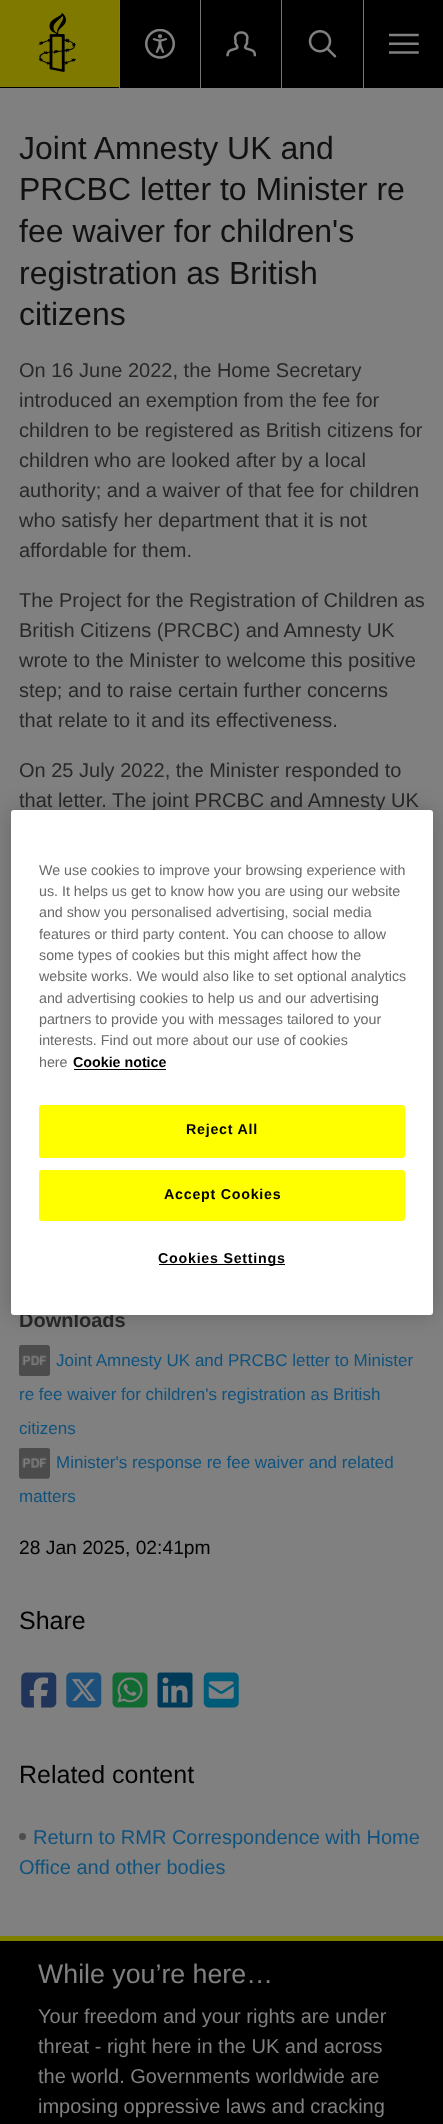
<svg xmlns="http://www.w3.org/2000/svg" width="443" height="2124">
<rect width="100%" height="100%" fill="#808080"/>
<rect width="443" height="88" fill="#000"/>
<image x="0" y="0" width="119" height="87" href="media/1.png"/>
<rect x="119" width="1" height="88" fill="#737476"/>
<image x="145" y="29" width="30" height="30" href="media/2.png"/>
<rect x="200" width="1" height="88" fill="#737476"/>
<image x="226" y="31" width="30" height="26" href="media/3.png"/>
<rect x="281" width="1" height="88" fill="#737476"/>
<image x="308" y="30" width="29" height="28" href="media/4.png"/>
<rect x="363" width="1" height="88" fill="#737476"/>
<image x="389" y="33" width="30" height="21" href="media/5.png"/>
<text x="19" y="159" style="font-family:Liberation Sans;font-size:32px;fill:#111">Joint Amnesty UK and</text>
<text x="19" y="200" style="font-family:Liberation Sans;font-size:32px;fill:#111">PRCBC letter to Minister re</text>
<text x="19" y="242" style="font-family:Liberation Sans;font-size:32px;fill:#111">fee waiver for children's</text>
<text x="19" y="284" style="font-family:Liberation Sans;font-size:32px;fill:#111">registration as British</text>
<text x="19" y="325" style="font-family:Liberation Sans;font-size:32px;fill:#111">citizens</text>
<text x="19" y="377" style="font-family:Liberation Sans;font-size:20px;fill:#282828">On 16 June 2022, the Home Secretary</text>
<text x="19" y="407" style="font-family:Liberation Sans;font-size:20px;fill:#282828">introduced an exemption from the fee for</text>
<text x="19" y="437" style="font-family:Liberation Sans;font-size:20px;fill:#282828">children to be registered as British citizens for</text>
<text x="19" y="467" style="font-family:Liberation Sans;font-size:20px;fill:#282828">children who are looked after by a local</text>
<text x="19" y="497" style="font-family:Liberation Sans;font-size:20px;fill:#282828">authority; and a waiver of that fee for children</text>
<text x="19" y="527" style="font-family:Liberation Sans;font-size:20px;fill:#282828">who satisfy her department that it is not</text>
<text x="19" y="557" style="font-family:Liberation Sans;font-size:20px;fill:#282828">affordable for them.</text>
<text x="19" y="607" style="font-family:Liberation Sans;font-size:20px;fill:#282828">The Project for the Registration of Children as</text>
<text x="19" y="637" style="font-family:Liberation Sans;font-size:20px;fill:#282828">British Citizens (PRCBC) and Amnesty UK</text>
<text x="19" y="667" style="font-family:Liberation Sans;font-size:20px;fill:#282828">wrote to the Minister to welcome this positive</text>
<text x="19" y="697" style="font-family:Liberation Sans;font-size:20px;fill:#282828">step; and to raise certain further concerns</text>
<text x="19" y="727" style="font-family:Liberation Sans;font-size:20px;fill:#282828">that relate to it and its effectiveness.</text>
<text x="19" y="777" style="font-family:Liberation Sans;font-size:20px;fill:#282828">On 25 July 2022, the Minister responded to</text>
<text x="19" y="807" style="font-family:Liberation Sans;font-size:20px;fill:#282828">that letter. The joint PRCBC and Amnesty UK</text>
<text x="19" y="1327" style="font-family:Liberation Sans;font-size:20px;font-weight:bold;fill:#282828">Downloads</text>
<image x="19" y="1345" width="31" height="31" href="media/6.png"/>
<text x="56" y="1366" style="font-family:Liberation Sans;font-size:17px;fill:#0f527d">Joint Amnesty UK and PRCBC letter to Minister</text>
<text x="19" y="1400" style="font-family:Liberation Sans;font-size:17px;fill:#0f527d">re fee waiver for children's registration as British</text>
<text x="19" y="1434" style="font-family:Liberation Sans;font-size:17px;fill:#0f527d">citizens</text>
<image x="19" y="1448" width="31" height="31" href="media/7.png"/>
<text x="56" y="1468" style="font-family:Liberation Sans;font-size:17px;fill:#0f527d">Minister's response re fee waiver and related</text>
<text x="19" y="1502" style="font-family:Liberation Sans;font-size:17px;fill:#0f527d">matters</text>
<text x="19" y="1554" style="font-family:Liberation Sans;font-size:19.25px;fill:#000">28 Jan 2025, 02:41pm</text>
<text x="19" y="1629" style="font-family:Liberation Sans;font-size:25px;fill:#000">Share</text>
<image x="21" y="1672" width="36" height="36" href="media/8.png"/>
<image x="66" y="1672" width="36" height="36" href="media/9.png"/>
<image x="112" y="1672" width="36" height="36" href="media/10.png"/>
<image x="157" y="1672" width="36" height="36" href="media/11.png"/>
<image x="203" y="1672" width="36" height="36" href="media/12.png"/>
<text x="19" y="1783" style="font-family:Liberation Sans;font-size:25px;fill:#000">Related content</text>
<circle cx="22.5" cy="1836.5" r="3.5" fill="#4d4d4d"/>
<text x="33" y="1844" style="font-family:Liberation Sans;font-size:20px;fill:#0f527d">Return to RMR Correspondence with Home</text>
<text x="19" y="1874" style="font-family:Liberation Sans;font-size:20px;fill:#0f527d">Office and other bodies</text>
<rect y="1941" width="443" height="183" fill="#000"/>
<rect y="1936" width="443" height="5" fill="#808000"/>
<text x="38" y="1983" style="font-family:Liberation Sans;font-size:26.75px;fill:#808080">While you’re here…</text>
<text x="38" y="2023" style="font-family:Liberation Sans;font-size:20px;fill:#808080">Your freedom and your rights are under</text>
<text x="38" y="2053" style="font-family:Liberation Sans;font-size:20px;fill:#808080">threat - right here in the UK and across</text>
<text x="38" y="2083" style="font-family:Liberation Sans;font-size:20px;fill:#808080">the world. Governments worldwide are</text>
<text x="38" y="2113" style="font-family:Liberation Sans;font-size:20px;fill:#808080">imposing oppressive laws and cracking</text>
<rect x="11" y="810" width="422" height="505" rx="3" fill="#00000033" filter="blur(11px)"/>
<rect x="11" y="810" width="422" height="505" rx="3" fill="#fff"/>
<text x="39" y="875" style="font-family:Liberation Sans;font-size:14.25px;fill:#696969">We use cookies to improve your browsing experience with</text>
<text x="39" y="896" style="font-family:Liberation Sans;font-size:14.25px;fill:#696969">us. It helps us get to know how you are using our website</text>
<text x="39" y="917" style="font-family:Liberation Sans;font-size:14.25px;fill:#696969">and show you personalised advertising, social media</text>
<text x="39" y="939" style="font-family:Liberation Sans;font-size:14.25px;fill:#696969">features or third party content. You can choose to allow</text>
<text x="39" y="960" style="font-family:Liberation Sans;font-size:14.25px;fill:#696969">some types of cookies but this might affect how the</text>
<text x="39" y="981" style="font-family:Liberation Sans;font-size:14.25px;fill:#696969">website works. We would also like to set optional analytics</text>
<text x="39" y="1003" style="font-family:Liberation Sans;font-size:14.25px;fill:#696969">and advertising cookies to help us and our advertising</text>
<text x="39" y="1024" style="font-family:Liberation Sans;font-size:14.25px;fill:#696969">partners to provide you with messages tailored to your</text>
<text x="39" y="1045" style="font-family:Liberation Sans;font-size:14.25px;fill:#696969">interests. Find out more about our use of cookies</text>
<text x="39" y="1067" style="font-family:Liberation Sans;font-size:14.25px;fill:#696969">here</text>
<text x="73" y="1067" style="font-family:Liberation Sans;font-size:14.25px;font-weight:bold;fill:#000">Cookie notice</text>
<rect x="74" y="1069" width="92" height="1" fill="#000"/>
<rect x="39.5" y="1105.5" width="365" height="52" rx="2" fill="#ff0" stroke="#ff0"/>
<text x="186" y="1134" style="font-family:Liberation Sans;font-size:14.25px;font-weight:bold;letter-spacing:0.75px;fill:#000">Reject All</text>
<rect x="39.5" y="1170.5" width="365" height="50" rx="2" fill="#ff0" stroke="#ff0"/>
<text x="164" y="1199" style="font-family:Liberation Sans;font-size:14.25px;font-weight:bold;letter-spacing:0.75px;fill:#000">Accept Cookies</text>
<rect x="159" y="1264" width="126" height="1" fill="#000"/>
<text x="158" y="1263" style="font-family:Liberation Sans;font-size:14.25px;font-weight:bold;letter-spacing:0.75px;fill:#000">Cookies Settings</text>
</svg>
